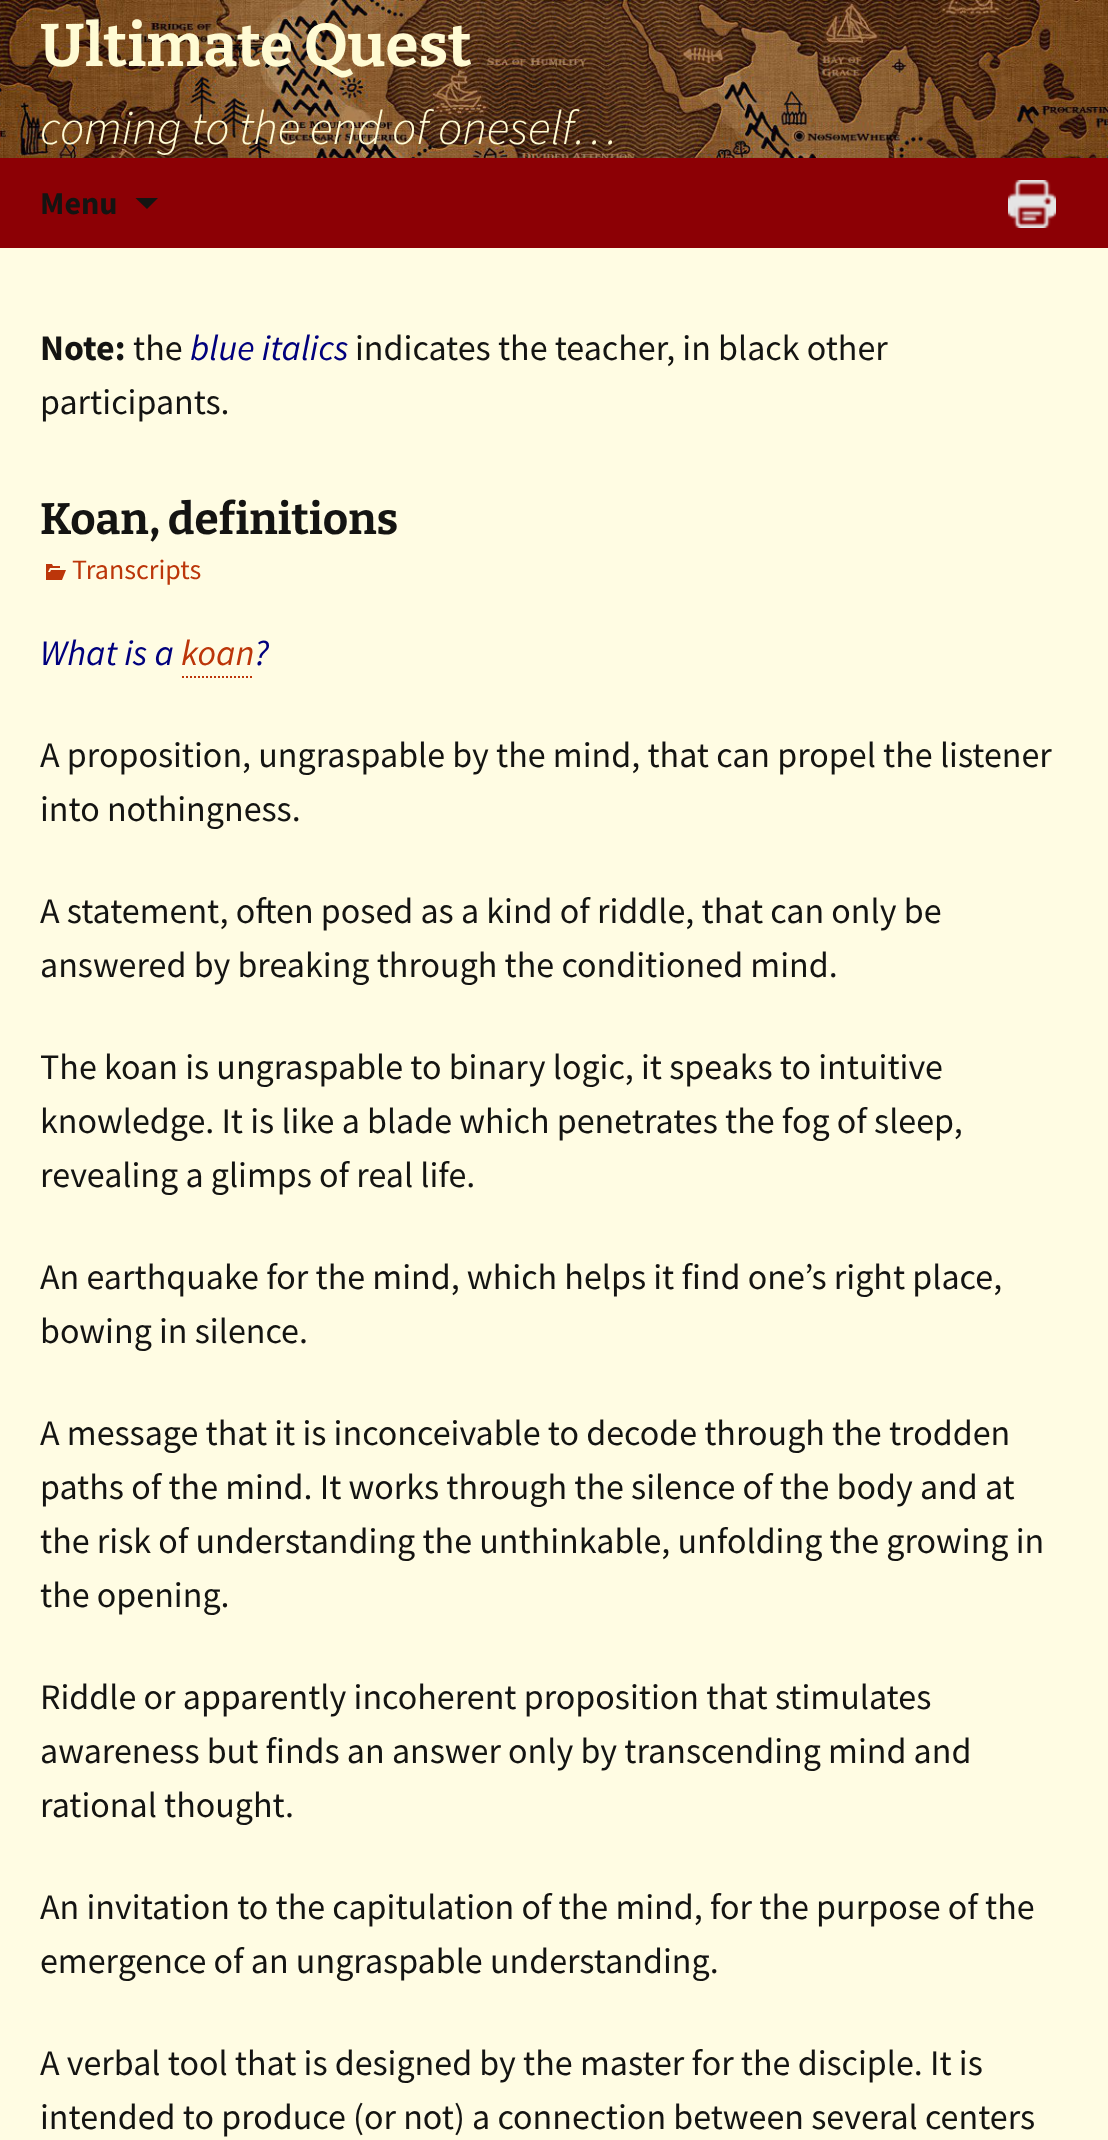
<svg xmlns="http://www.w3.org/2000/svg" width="1108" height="2140">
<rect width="100%" height="100%" fill="#fffce3"/>
<image x="0" y="0" width="1108" height="158" href="media/1.png"/>
<text x="40" y="66" style="font-family:Bitter;font-size:60px;font-weight:bold;fill:#fffbd4">Ultimate Quest</text>
<text x="40" y="144" style="font-family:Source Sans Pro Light;font-size:48px;font-weight:300;font-style:italic;fill:#fffbd4">coming to the end of oneself…</text>
<rect y="158" width="1108" height="90" fill="#8c0005"/>
<text x="40" y="214" style="font-family:Source Sans Pro;font-size:32px;font-weight:bold;fill:#141412">Menu</text>
<path d="M135.5 198l11.5 11l11-11z" fill="#141412"/>
<image x="1008" y="180" width="48" height="48" href="media/2.png"/>
<text x="40" y="360" style="font-family:Source Sans Pro;font-size:36px;font-weight:bold;fill:#141412">Note:</text>
<text x="133" y="360" style="font-family:Source Sans Pro;font-size:36px;fill:#141412">the</text>
<text x="190" y="360" style="font-family:Source Sans Pro;font-size:36px;font-style:italic;fill:#00007d">blue italics</text>
<text x="355" y="360" style="font-family:Source Sans Pro;font-size:36px;fill:#141412">indicates the teacher, in black other</text>
<text x="40" y="414" style="font-family:Source Sans Pro;font-size:36px;fill:#141412">participants.</text>
<text x="40" y="534" style="font-family:Bitter;font-size:44px;font-weight:bold;fill:#141412">Koan, definitions</text>
<image x="46" y="564" width="20" height="16" href="media/3.png"/>
<text x="72" y="579" style="font-family:Source Sans Pro;font-size:28px;fill:#bc360a">Transcripts</text>
<text x="40" y="665" style="font-family:Source Sans Pro;font-size:36px;font-style:italic;fill:#00007d">What is a</text>
<text x="181" y="665" style="font-family:Source Sans Pro;font-size:36px;font-style:italic;fill:#bc360a">koan</text>
<path d="M182 677h72" fill="none" stroke="#bc360a" stroke-width="2" stroke-dasharray="2 2"/>
<text x="254" y="665" style="font-family:Source Sans Pro;font-size:36px;font-style:italic;fill:#00007d">?</text>
<text x="40" y="767" style="font-family:Source Sans Pro;font-size:36px;fill:#141412">A proposition, ungraspable by the mind, that can propel the listener</text>
<text x="40" y="821" style="font-family:Source Sans Pro;font-size:36px;fill:#141412">into nothingness.</text>
<text x="40" y="923" style="font-family:Source Sans Pro;font-size:36px;fill:#141412">A statement, often posed as a kind of riddle, that can only be</text>
<text x="40" y="977" style="font-family:Source Sans Pro;font-size:36px;fill:#141412">answered by breaking through the conditioned mind.</text>
<text x="40" y="1079" style="font-family:Source Sans Pro;font-size:36px;fill:#141412">The koan is ungraspable to binary logic, it speaks to intuitive</text>
<text x="40" y="1133" style="font-family:Source Sans Pro;font-size:36px;fill:#141412">knowledge. It is like a blade which penetrates the fog of sleep,</text>
<text x="40" y="1187" style="font-family:Source Sans Pro;font-size:36px;fill:#141412">revealing a glimps of real life.</text>
<text x="40" y="1289" style="font-family:Source Sans Pro;font-size:36px;fill:#141412">An earthquake for the mind, which helps it find one’s right place,</text>
<text x="40" y="1343" style="font-family:Source Sans Pro;font-size:36px;fill:#141412">bowing in silence.</text>
<text x="40" y="1445" style="font-family:Source Sans Pro;font-size:36px;fill:#141412">A message that it is inconceivable to decode through the trodden</text>
<text x="40" y="1499" style="font-family:Source Sans Pro;font-size:36px;fill:#141412">paths of the mind. It works through the silence of the body and at</text>
<text x="40" y="1553" style="font-family:Source Sans Pro;font-size:36px;fill:#141412">the risk of understanding the unthinkable, unfolding the growing in</text>
<text x="40" y="1607" style="font-family:Source Sans Pro;font-size:36px;fill:#141412">the opening.</text>
<text x="40" y="1709" style="font-family:Source Sans Pro;font-size:36px;fill:#141412">Riddle or apparently incoherent proposition that stimulates</text>
<text x="40" y="1763" style="font-family:Source Sans Pro;font-size:36px;fill:#141412">awareness but finds an answer only by transcending mind and</text>
<text x="40" y="1817" style="font-family:Source Sans Pro;font-size:36px;fill:#141412">rational thought.</text>
<text x="40" y="1919" style="font-family:Source Sans Pro;font-size:36px;fill:#141412">An invitation to the capitulation of the mind, for the purpose of the</text>
<text x="40" y="1973" style="font-family:Source Sans Pro;font-size:36px;fill:#141412">emergence of an ungraspable understanding.</text>
<text x="40" y="2075" style="font-family:Source Sans Pro;font-size:36px;fill:#141412">A verbal tool that is designed by the master for the disciple. It is</text>
<text x="40" y="2129" style="font-family:Source Sans Pro;font-size:36px;fill:#141412">intended to produce (or not) a connection between several centers</text>
</svg>
